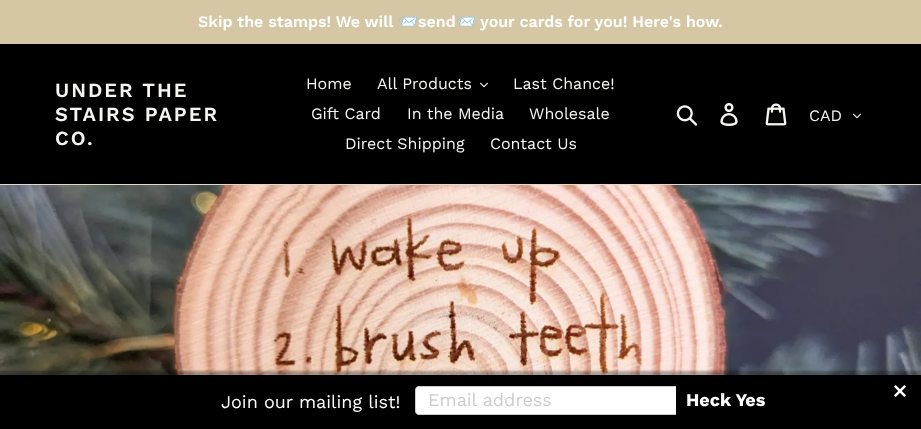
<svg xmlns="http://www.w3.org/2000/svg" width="921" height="429">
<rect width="100%" height="100%" fill="#000"/>
<rect width="921" height="44" fill="#d6c7a4"/>
<text x="198" y="27" style="font-family:Work Sans;font-size:16px;font-weight:600;fill:#fff">Skip the stamps! We will</text>
<text x="398" y="27" style="font-family:Noto Color Emoji;font-size:16px;font-weight:bold;fill:#fff">📨</text>
<text x="418" y="27" style="font-family:Work Sans;font-size:16px;font-weight:600;fill:#fff">send</text>
<text x="456" y="27" style="font-family:Noto Color Emoji;font-size:16px;font-weight:bold;fill:#fff">📨</text>
<text x="480" y="27" style="font-family:Work Sans;font-size:16px;font-weight:600;fill:#fff">your cards for you! Here's how.</text>
<rect y="184" width="921" height="1" fill="#e5dbc5"/>
<text x="55" y="97" style="font-family:Work Sans;font-size:20px;font-weight:600;letter-spacing:2px;fill:#f7f5f1">UNDER THE</text>
<text x="55" y="121" style="font-family:Work Sans;font-size:20px;font-weight:600;letter-spacing:2px;fill:#f7f5f1">STAIRS PAPER</text>
<text x="55" y="145" style="font-family:Work Sans;font-size:20px;font-weight:600;letter-spacing:2px;fill:#f7f5f1">CO.</text>
<text x="306" y="89" style="font-family:Work Sans;font-size:16px;fill:#f7f5f1">Home</text>
<text x="377" y="89" style="font-family:Work Sans;font-size:16px;fill:#f7f5f1">All Products</text>
<image x="480" y="82" width="8" height="6" href="media/1.png"/>
<text x="513" y="89" style="font-family:Work Sans;font-size:16px;fill:#f7f5f1">Last Chance!</text>
<text x="311" y="119" style="font-family:Work Sans;font-size:16px;fill:#f7f5f1">Gift Card</text>
<text x="407" y="119" style="font-family:Work Sans;font-size:16px;fill:#f7f5f1">In the Media</text>
<text x="529" y="119" style="font-family:Work Sans;font-size:16px;fill:#f7f5f1">Wholesale</text>
<text x="345" y="149" style="font-family:Work Sans;font-size:16px;fill:#f7f5f1">Direct Shipping</text>
<text x="490" y="149" style="font-family:Work Sans;font-size:16px;fill:#f7f5f1">Contact Us</text>
<image x="676" y="105" width="22" height="21" href="media/2.png"/>
<image x="720" y="103" width="18" height="23" href="media/3.png"/>
<image x="765" y="103" width="22" height="23" href="media/4.png"/>
<text x="809" y="121" style="font-family:Work Sans;font-size:16px;fill:#f7f5f1">CAD</text>
<image x="853" y="113" width="8" height="6" href="media/1.png"/>
<image x="0" y="185" width="921" height="190" href="media/5.png"/>
<rect x="-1" y="371" width="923" height="56" fill="#0000004d" filter="blur(1px)"/>
<text x="221" y="408" style="font-family:Work Sans;font-size:18px;fill:#fff">Join our mailing list!</text>
<path d="M419 386h257v29h-257c-2 0-4-2-4-4v-21c0-2 2-4 4-4z" fill="#fff"/>
<path d="M419 386h257v29h-257c-2 0-4-2-4-4v-21c0-2 2-4 4-4zm0 1h257v27h-257c-2 0-3-1-3-3v-21c0-2 1-3 3-3z" fill="#00000033" fill-rule="evenodd"/>
<text x="428" y="406" style="font-family:Work Sans;font-size:18px;fill:#ccc">Email address</text>
<text x="686" y="406" style="font-family:Work Sans;font-size:18px;font-weight:bold;fill:#fff">Heck Yes</text>
<image x="894" y="385" width="12" height="12" href="media/6.png"/>
</svg>
